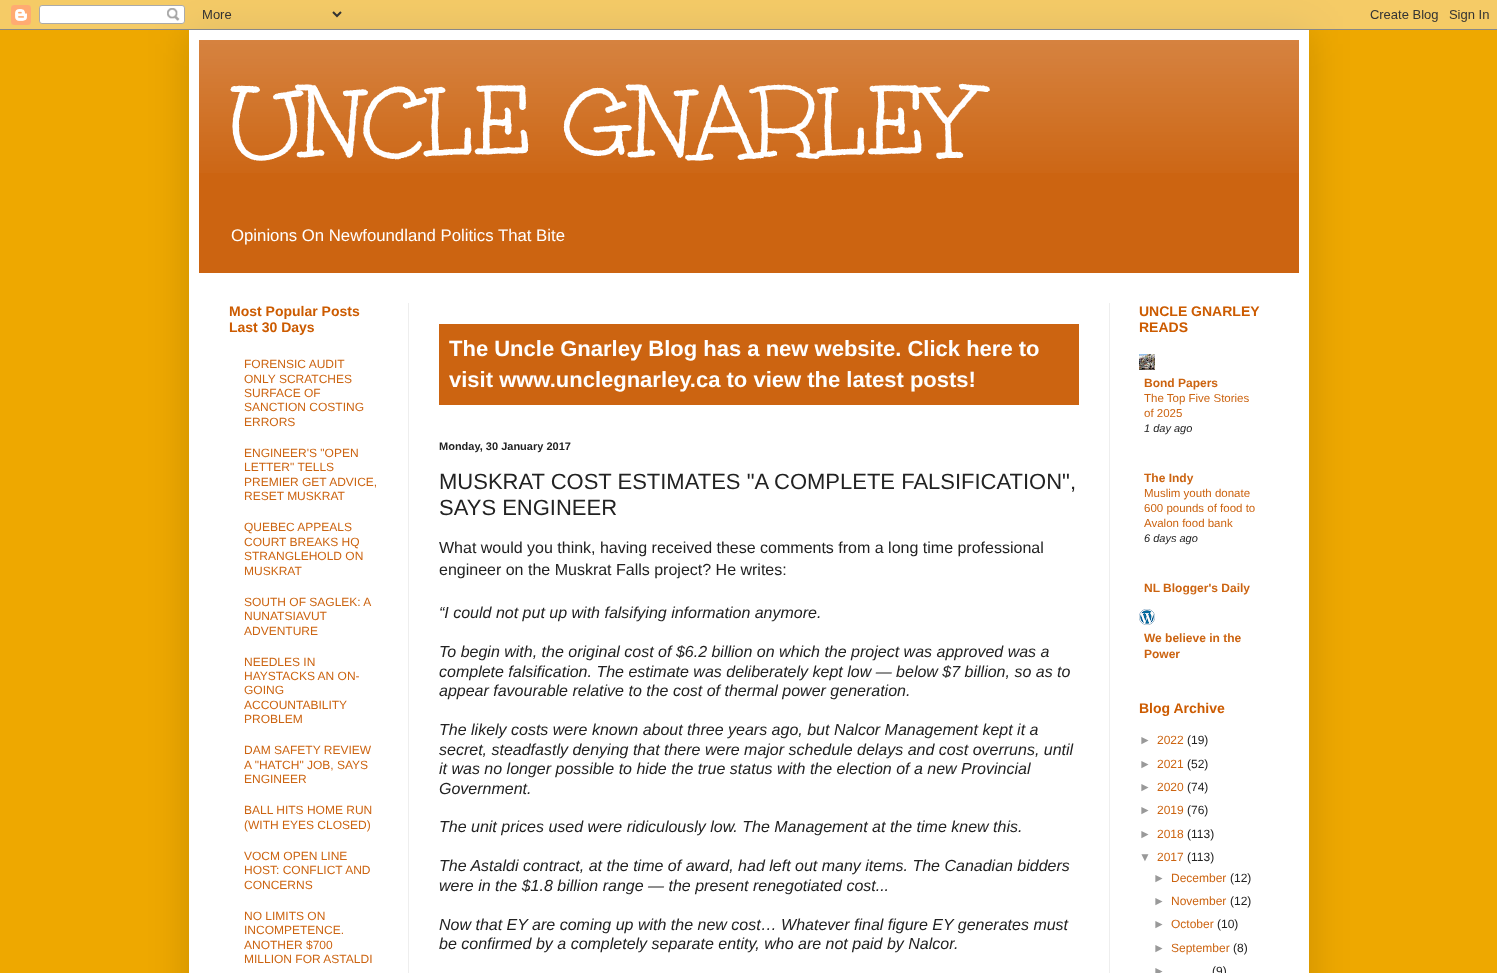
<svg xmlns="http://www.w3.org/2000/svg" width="1497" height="973">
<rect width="100%" height="100%" fill="#eea800"/>
<rect x="189" y="30" width="1120" height="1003" fill="#00000026" filter="blur(20px)"/>
<image x="0" y="0" width="1497" height="30" href="media/1.png"/>
<rect x="189" y="30" width="1120" height="943" fill="#fff"/>
<rect x="199" y="40" width="1100" height="233" fill="#cc6411"/>
<image x="199" y="40" width="1100" height="133" href="media/2.png"/>
<text x="229" y="158" style="font-family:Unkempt;font-size:100px;fill:#fff">UNCLE GNARLEY</text>
<text x="231" y="241" style="font-family:Liberation Sans;font-size:16.75px;fill:#fff">Opinions On Newfoundland Politics That Bite</text>
<rect x="408" y="303" width="1" height="670" fill="#eee"/>
<rect x="1109" y="303" width="1" height="670" fill="#eee"/>
<text x="229" y="316" style="font-family:Liberation Sans;font-size:14px;font-weight:bold;fill:#cc5b00">Most Popular Posts</text>
<text x="229" y="332" style="font-family:Liberation Sans;font-size:14px;font-weight:bold;fill:#cc5b00">Last 30 Days</text>
<text x="244" y="368" style="font-family:Liberation Sans;font-size:12px;fill:#cc6411">FORENSIC AUDIT</text>
<text x="244" y="383" style="font-family:Liberation Sans;font-size:12px;fill:#cc6411">ONLY SCRATCHES</text>
<text x="244" y="397" style="font-family:Liberation Sans;font-size:12px;fill:#cc6411">SURFACE OF</text>
<text x="244" y="411" style="font-family:Liberation Sans;font-size:12px;fill:#cc6411">SANCTION COSTING</text>
<text x="244" y="426" style="font-family:Liberation Sans;font-size:12px;fill:#cc6411">ERRORS</text>
<text x="244" y="457" style="font-family:Liberation Sans;font-size:12px;fill:#cc6411">ENGINEER'S "OPEN</text>
<text x="244" y="471" style="font-family:Liberation Sans;font-size:12px;fill:#cc6411">LETTER" TELLS</text>
<text x="244" y="486" style="font-family:Liberation Sans;font-size:12px;fill:#cc6411">PREMIER GET ADVICE,</text>
<text x="244" y="500" style="font-family:Liberation Sans;font-size:12px;fill:#cc6411">RESET MUSKRAT</text>
<text x="244" y="531" style="font-family:Liberation Sans;font-size:12px;fill:#cc6411">QUEBEC APPEALS</text>
<text x="244" y="546" style="font-family:Liberation Sans;font-size:12px;fill:#cc6411">COURT BREAKS HQ</text>
<text x="244" y="560" style="font-family:Liberation Sans;font-size:12px;fill:#cc6411">STRANGLEHOLD ON</text>
<text x="244" y="575" style="font-family:Liberation Sans;font-size:12px;fill:#cc6411">MUSKRAT</text>
<text x="244" y="606" style="font-family:Liberation Sans;font-size:12px;fill:#cc6411">SOUTH OF SAGLEK: A</text>
<text x="244" y="620" style="font-family:Liberation Sans;font-size:12px;fill:#cc6411">NUNATSIAVUT</text>
<text x="244" y="635" style="font-family:Liberation Sans;font-size:12px;fill:#cc6411">ADVENTURE</text>
<text x="244" y="666" style="font-family:Liberation Sans;font-size:12px;fill:#cc6411">NEEDLES IN</text>
<text x="244" y="680" style="font-family:Liberation Sans;font-size:12px;fill:#cc6411">HAYSTACKS AN ON-</text>
<text x="244" y="694" style="font-family:Liberation Sans;font-size:12px;fill:#cc6411">GOING</text>
<text x="244" y="709" style="font-family:Liberation Sans;font-size:12px;fill:#cc6411">ACCOUNTABILITY</text>
<text x="244" y="723" style="font-family:Liberation Sans;font-size:12px;fill:#cc6411">PROBLEM</text>
<text x="244" y="754" style="font-family:Liberation Sans;font-size:12px;fill:#cc6411">DAM SAFETY REVIEW</text>
<text x="244" y="769" style="font-family:Liberation Sans;font-size:12px;fill:#cc6411">A "HATCH" JOB, SAYS</text>
<text x="244" y="783" style="font-family:Liberation Sans;font-size:12px;fill:#cc6411">ENGINEER</text>
<text x="244" y="814" style="font-family:Liberation Sans;font-size:12px;fill:#cc6411">BALL HITS HOME RUN</text>
<text x="244" y="829" style="font-family:Liberation Sans;font-size:12px;fill:#cc6411">(WITH EYES CLOSED)</text>
<text x="244" y="860" style="font-family:Liberation Sans;font-size:12px;fill:#cc6411">VOCM OPEN LINE</text>
<text x="244" y="874" style="font-family:Liberation Sans;font-size:12px;fill:#cc6411">HOST: CONFLICT AND</text>
<text x="244" y="889" style="font-family:Liberation Sans;font-size:12px;fill:#cc6411">CONCERNS</text>
<text x="244" y="920" style="font-family:Liberation Sans;font-size:12px;fill:#cc6411">NO LIMITS ON</text>
<text x="244" y="934" style="font-family:Liberation Sans;font-size:12px;fill:#cc6411">INCOMPETENCE.</text>
<text x="244" y="949" style="font-family:Liberation Sans;font-size:12px;fill:#cc6411">ANOTHER $700</text>
<text x="244" y="963" style="font-family:Liberation Sans;font-size:12px;fill:#cc6411">MILLION FOR ASTALDI</text>
<rect x="439" y="324" width="640" height="81" fill="#cc6411"/>
<text x="449" y="356" style="font-family:Liberation Sans;font-size:22px;font-weight:bold;fill:#fff">The Uncle Gnarley Blog has a new website. Click here to</text>
<text x="449" y="387" style="font-family:Liberation Sans;font-size:22px;font-weight:bold;fill:#fff">visit www.unclegnarley.ca to view the latest posts!</text>
<text x="439" y="450" style="font-family:Liberation Sans;font-size:11px;font-weight:bold;fill:#222">Monday, 30 January 2017</text>
<text x="439" y="489" style="font-family:Liberation Sans;font-size:22px;fill:#222">MUSKRAT COST ESTIMATES "A COMPLETE FALSIFICATION",</text>
<text x="439" y="515" style="font-family:Liberation Sans;font-size:22px;fill:#222">SAYS ENGINEER</text>
<text x="439" y="553" style="font-family:Liberation Sans;font-size:16px;fill:#222">What would you think, having received these comments from a long time professional</text>
<text x="439" y="575" style="font-family:Liberation Sans;font-size:16px;fill:#222">engineer on the Muskrat Falls project? He writes:</text>
<text x="439" y="618" style="font-family:Liberation Sans;font-size:16px;font-style:italic;fill:#222">“I could not put up with falsifying information anymore.</text>
<text x="439" y="657" style="font-family:Liberation Sans;font-size:16px;font-style:italic;fill:#222">To begin with, the original cost of $6.2 billion on which the project was approved was a</text>
<text x="439" y="677" style="font-family:Liberation Sans;font-size:16px;font-style:italic;fill:#222">complete falsification. The estimate was deliberately kept low — below $7 billion, so as to</text>
<text x="439" y="696" style="font-family:Liberation Sans;font-size:16px;font-style:italic;fill:#222">appear favourable relative to the cost of thermal power generation.</text>
<text x="439" y="735" style="font-family:Liberation Sans;font-size:16px;font-style:italic;fill:#222">The likely costs were known about three years ago, but Nalcor Management kept it a</text>
<text x="439" y="755" style="font-family:Liberation Sans;font-size:16px;font-style:italic;fill:#222">secret, steadfastly denying that there were major schedule delays and cost overruns, until</text>
<text x="439" y="774" style="font-family:Liberation Sans;font-size:16px;font-style:italic;fill:#222">it was no longer possible to hide the true status with the election of a new Provincial</text>
<text x="439" y="794" style="font-family:Liberation Sans;font-size:16px;font-style:italic;fill:#222">Government.</text>
<text x="439" y="832" style="font-family:Liberation Sans;font-size:16px;font-style:italic;fill:#222">The unit prices used were ridiculously low. The Management at the time knew this.</text>
<text x="439" y="871" style="font-family:Liberation Sans;font-size:16px;font-style:italic;fill:#222">The Astaldi contract, at the time of award, had left out many items. The Canadian bidders</text>
<text x="439" y="891" style="font-family:Liberation Sans;font-size:16px;font-style:italic;fill:#222">were in the $1.8 billion range — the present renegotiated cost...</text>
<text x="439" y="930" style="font-family:Liberation Sans;font-size:16px;font-style:italic;fill:#222">Now that EY are coming up with the new cost… Whatever final figure EY generates must</text>
<text x="439" y="949" style="font-family:Liberation Sans;font-size:16px;font-style:italic;fill:#222">be confirmed by a completely separate entity, who are not paid by Nalcor.</text>
<text x="1139" y="316" style="font-family:Liberation Sans;font-size:14px;font-weight:bold;fill:#cc5b00">UNCLE GNARLEY</text>
<text x="1139" y="332" style="font-family:Liberation Sans;font-size:14px;font-weight:bold;fill:#cc5b00">READS</text>
<image x="1139" y="354" width="16" height="16" href="media/3.png"/>
<text x="1144" y="387" style="font-family:Liberation Sans;font-size:12px;font-weight:bold;fill:#cc6411">Bond Papers</text>
<text x="1144" y="402" style="font-family:Liberation Sans;font-size:11.5px;fill:#cc6411">The Top Five Stories</text>
<text x="1144" y="417" style="font-family:Liberation Sans;font-size:11.5px;fill:#cc6411">of 2025</text>
<text x="1144" y="432" style="font-family:Liberation Sans;font-size:11px;font-style:italic;fill:#222">1 day ago</text>
<text x="1144" y="482" style="font-family:Liberation Sans;font-size:12px;font-weight:bold;fill:#cc6411">The Indy</text>
<text x="1144" y="497" style="font-family:Liberation Sans;font-size:11.5px;fill:#cc6411">Muslim youth donate</text>
<text x="1144" y="512" style="font-family:Liberation Sans;font-size:11.5px;fill:#cc6411">600 pounds of food to</text>
<text x="1144" y="527" style="font-family:Liberation Sans;font-size:11.5px;fill:#cc6411">Avalon food bank</text>
<text x="1144" y="542" style="font-family:Liberation Sans;font-size:11px;font-style:italic;fill:#222">6 days ago</text>
<text x="1144" y="592" style="font-family:Liberation Sans;font-size:12px;font-weight:bold;fill:#cc6411">NL Blogger's Daily</text>
<image x="1139" y="609" width="16" height="16" href="media/4.png"/>
<text x="1144" y="642" style="font-family:Liberation Sans;font-size:12px;font-weight:bold;fill:#cc6411">We believe in the</text>
<text x="1144" y="658" style="font-family:Liberation Sans;font-size:12px;font-weight:bold;fill:#cc6411">Power</text>
<text x="1139" y="713" style="font-family:Liberation Sans;font-size:14px;font-weight:bold;fill:#cc5b00">Blog Archive</text>
<text x="1139" y="744" style="font-family:Liberation Sans;font-size:12px;fill:#999">►</text>
<text x="1157" y="744" style="font-family:Liberation Sans;font-size:12px;fill:#cc6411">2022</text>
<text x="1187" y="744" style="font-family:Liberation Sans;font-size:12px;fill:#222">(19)</text>
<text x="1139" y="768" style="font-family:Liberation Sans;font-size:12px;fill:#999">►</text>
<text x="1157" y="768" style="font-family:Liberation Sans;font-size:12px;fill:#cc6411">2021</text>
<text x="1187" y="768" style="font-family:Liberation Sans;font-size:12px;fill:#222">(52)</text>
<text x="1139" y="791" style="font-family:Liberation Sans;font-size:12px;fill:#999">►</text>
<text x="1157" y="791" style="font-family:Liberation Sans;font-size:12px;fill:#cc6411">2020</text>
<text x="1187" y="791" style="font-family:Liberation Sans;font-size:12px;fill:#222">(74)</text>
<text x="1139" y="814" style="font-family:Liberation Sans;font-size:12px;fill:#999">►</text>
<text x="1157" y="814" style="font-family:Liberation Sans;font-size:12px;fill:#cc6411">2019</text>
<text x="1187" y="814" style="font-family:Liberation Sans;font-size:12px;fill:#222">(76)</text>
<text x="1139" y="838" style="font-family:Liberation Sans;font-size:12px;fill:#999">►</text>
<text x="1157" y="838" style="font-family:Liberation Sans;font-size:12px;fill:#cc6411">2018</text>
<text x="1187" y="838" style="font-family:Liberation Sans;font-size:12px;fill:#222">(113)</text>
<text x="1139" y="861" style="font-family:Liberation Sans;font-size:12px;fill:#999">▼</text>
<text x="1157" y="861" style="font-family:Liberation Sans;font-size:12px;fill:#cc6411">2017</text>
<text x="1187" y="861" style="font-family:Liberation Sans;font-size:12px;fill:#222">(113)</text>
<text x="1153" y="882" style="font-family:Liberation Sans;font-size:12px;fill:#999">►</text>
<text x="1171" y="882" style="font-family:Liberation Sans;font-size:12px;fill:#cc6411">December</text>
<text x="1230" y="882" style="font-family:Liberation Sans;font-size:12px;fill:#222">(12)</text>
<text x="1153" y="905" style="font-family:Liberation Sans;font-size:12px;fill:#999">►</text>
<text x="1171" y="905" style="font-family:Liberation Sans;font-size:12px;fill:#cc6411">November</text>
<text x="1230" y="905" style="font-family:Liberation Sans;font-size:12px;fill:#222">(12)</text>
<text x="1153" y="928" style="font-family:Liberation Sans;font-size:12px;fill:#999">►</text>
<text x="1171" y="928" style="font-family:Liberation Sans;font-size:12px;fill:#cc6411">October</text>
<text x="1217" y="928" style="font-family:Liberation Sans;font-size:12px;fill:#222">(10)</text>
<text x="1153" y="952" style="font-family:Liberation Sans;font-size:12px;fill:#999">►</text>
<text x="1171" y="952" style="font-family:Liberation Sans;font-size:12px;fill:#cc6411">September</text>
<text x="1233" y="952" style="font-family:Liberation Sans;font-size:12px;fill:#222">(8)</text>
<text x="1153" y="975" style="font-family:Liberation Sans;font-size:12px;fill:#999">►</text>
<text x="1212" y="975" style="font-family:Liberation Sans;font-size:12px;fill:#222">(9)</text>
</svg>
